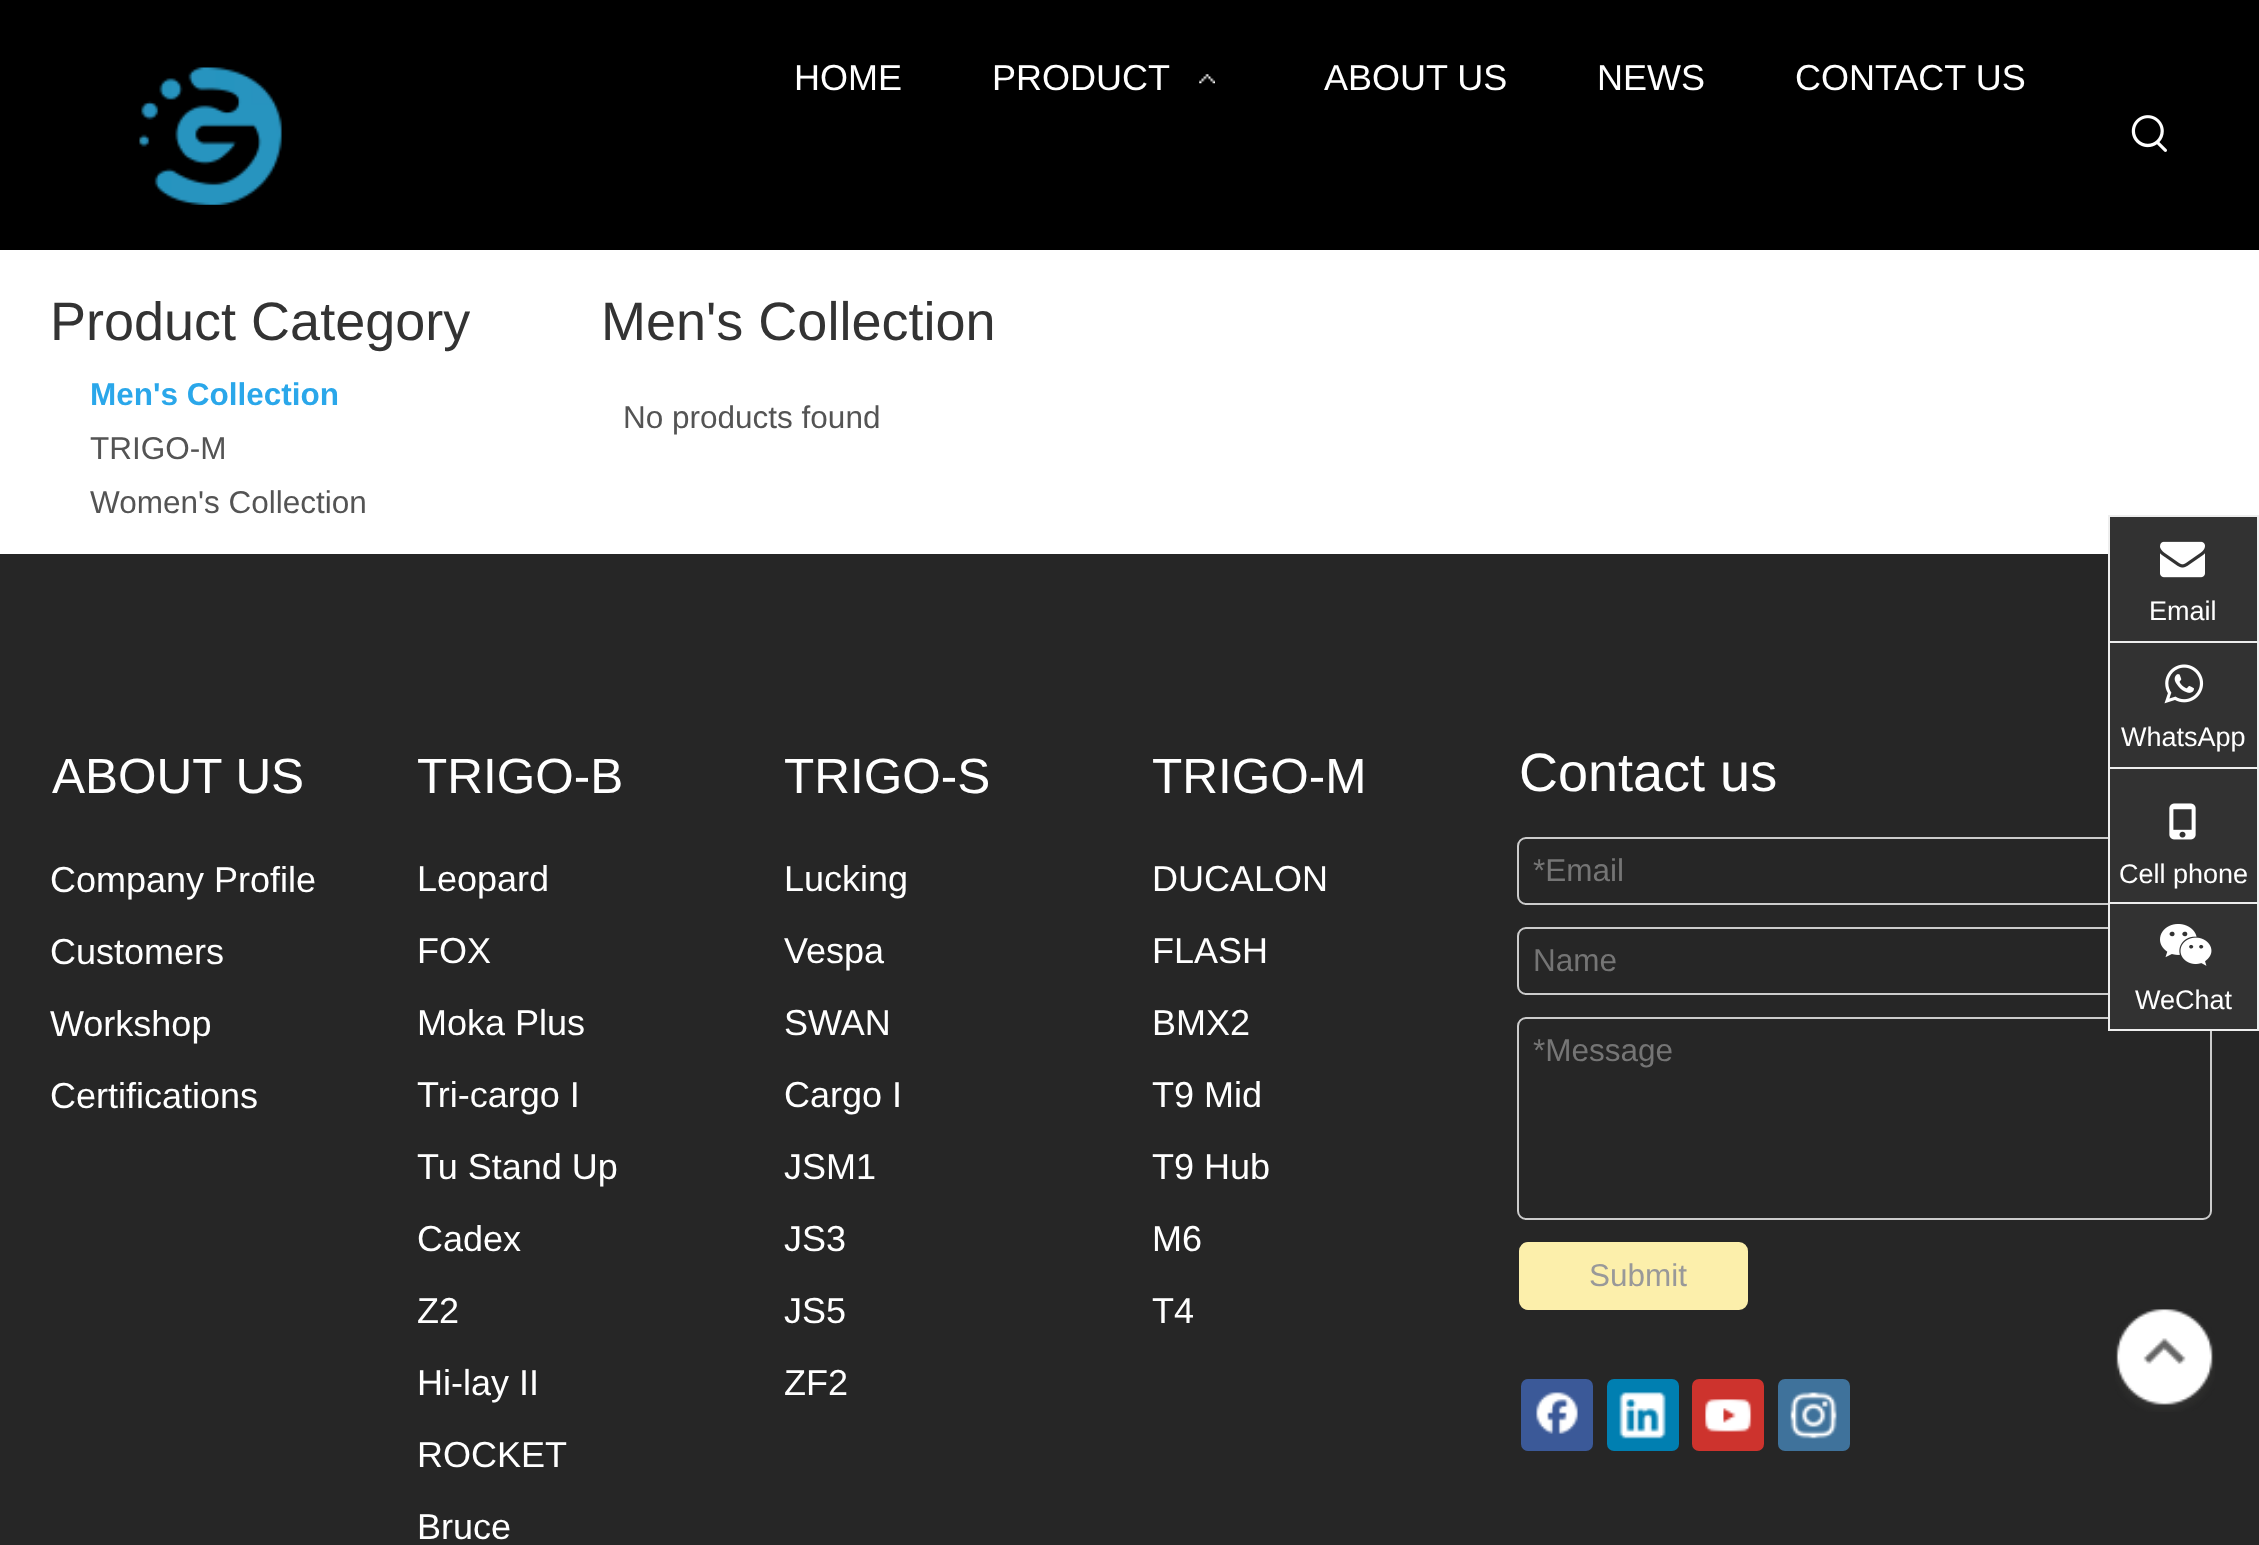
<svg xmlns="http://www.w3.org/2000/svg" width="2259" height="1545">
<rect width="100%" height="100%" fill="#fff"/>
<rect width="2259" height="250" fill="#000"/>
<image x="139" y="67" width="143" height="138" href="media/1.png"/>
<text x="794" y="90" style="font-family:Liberation Sans;font-size:36px;fill:#fff">HOME</text>
<text x="992" y="90" style="font-family:Liberation Sans;font-size:36px;fill:#fff">PRODUCT</text>
<image x="1199" y="74" width="16" height="10" href="media/2.png"/>
<text x="1324" y="90" style="font-family:Liberation Sans;font-size:36px;fill:#fff">ABOUT US</text>
<text x="1597" y="90" style="font-family:Liberation Sans;font-size:36px;fill:#fff">NEWS</text>
<text x="1795" y="90" style="font-family:Liberation Sans;font-size:36px;fill:#fff">CONTACT US</text>
<image x="2131" y="115" width="36" height="37" href="media/3.png"/>
<text x="50" y="340" style="font-family:Liberation Sans;font-size:54px;fill:#333">Product Category</text>
<text x="90" y="405" style="font-family:Liberation Sans;font-size:31.5px;font-weight:bold;fill:#2aa7ea">Men's Collection</text>
<text x="90" y="459" style="font-family:Liberation Sans;font-size:31.5px;fill:#545454">TRIGO-M</text>
<text x="90" y="513" style="font-family:Liberation Sans;font-size:31.5px;fill:#545454">Women's Collection</text>
<text x="601" y="340" style="font-family:Liberation Sans;font-size:54px;fill:#333">Men's Collection</text>
<text x="623" y="428" style="font-family:Liberation Sans;font-size:31.5px;fill:#545454">No products found</text>
<rect y="554" width="2259" height="991" fill="#262626"/>
<text x="52" y="793" style="font-family:Liberation Sans;font-size:49.5px;fill:#fff">ABOUT US</text>
<text x="50" y="892" style="font-family:Liberation Sans;font-size:36px;fill:#fff">Company Profile</text>
<text x="50" y="964" style="font-family:Liberation Sans;font-size:36px;fill:#fff">Customers</text>
<text x="50" y="1036" style="font-family:Liberation Sans;font-size:36px;fill:#fff">Workshop</text>
<text x="50" y="1108" style="font-family:Liberation Sans;font-size:36px;fill:#fff">Certifications</text>
<text x="417" y="793" style="font-family:Liberation Sans;font-size:49.5px;fill:#fff">TRIGO-B</text>
<text x="417" y="891" style="font-family:Liberation Sans;font-size:36px;fill:#fff">Leopard</text>
<text x="417" y="963" style="font-family:Liberation Sans;font-size:36px;fill:#fff">FOX</text>
<text x="417" y="1035" style="font-family:Liberation Sans;font-size:36px;fill:#fff">Moka Plus</text>
<text x="417" y="1107" style="font-family:Liberation Sans;font-size:36px;fill:#fff">Tri-cargo I</text>
<text x="417" y="1179" style="font-family:Liberation Sans;font-size:36px;fill:#fff">Tu Stand Up</text>
<text x="417" y="1251" style="font-family:Liberation Sans;font-size:36px;fill:#fff">Cadex</text>
<text x="417" y="1323" style="font-family:Liberation Sans;font-size:36px;fill:#fff">Z2</text>
<text x="417" y="1395" style="font-family:Liberation Sans;font-size:36px;fill:#fff">Hi-lay II</text>
<text x="417" y="1467" style="font-family:Liberation Sans;font-size:36px;fill:#fff">ROCKET</text>
<text x="417" y="1539" style="font-family:Liberation Sans;font-size:36px;fill:#fff">Bruce</text>
<text x="784" y="793" style="font-family:Liberation Sans;font-size:49.5px;fill:#fff">TRIGO-S</text>
<text x="784" y="891" style="font-family:Liberation Sans;font-size:36px;fill:#fff">Lucking</text>
<text x="784" y="963" style="font-family:Liberation Sans;font-size:36px;fill:#fff">Vespa</text>
<text x="784" y="1035" style="font-family:Liberation Sans;font-size:36px;fill:#fff">SWAN</text>
<text x="784" y="1107" style="font-family:Liberation Sans;font-size:36px;fill:#fff">Cargo I</text>
<text x="784" y="1179" style="font-family:Liberation Sans;font-size:36px;fill:#fff">JSM1</text>
<text x="784" y="1251" style="font-family:Liberation Sans;font-size:36px;fill:#fff">JS3</text>
<text x="784" y="1323" style="font-family:Liberation Sans;font-size:36px;fill:#fff">JS5</text>
<text x="784" y="1395" style="font-family:Liberation Sans;font-size:36px;fill:#fff">ZF2</text>
<text x="1152" y="793" style="font-family:Liberation Sans;font-size:49.5px;fill:#fff">TRIGO-M</text>
<text x="1152" y="891" style="font-family:Liberation Sans;font-size:36px;fill:#fff">DUCALON</text>
<text x="1152" y="963" style="font-family:Liberation Sans;font-size:36px;fill:#fff">FLASH</text>
<text x="1152" y="1035" style="font-family:Liberation Sans;font-size:36px;fill:#fff">BMX2</text>
<text x="1152" y="1107" style="font-family:Liberation Sans;font-size:36px;fill:#fff">T9 Mid</text>
<text x="1152" y="1179" style="font-family:Liberation Sans;font-size:36px;fill:#fff">T9 Hub</text>
<text x="1152" y="1251" style="font-family:Liberation Sans;font-size:36px;fill:#fff">M6</text>
<text x="1152" y="1323" style="font-family:Liberation Sans;font-size:36px;fill:#fff">T4</text>
<text x="1519" y="791" style="font-family:Liberation Sans;font-size:54px;fill:#fff">Contact us</text>
<rect x="1518" y="838" width="693" height="66" rx="8" fill="none" stroke="#ccc" stroke-width="2"/>
<text x="1533" y="881" style="font-family:Liberation Sans;font-size:31.5px;fill:#757575">*Email</text>
<rect x="1518" y="928" width="693" height="66" rx="8" fill="none" stroke="#ccc" stroke-width="2"/>
<text x="1533" y="971" style="font-family:Liberation Sans;font-size:31.5px;fill:#757575">Name</text>
<rect x="1518" y="1018" width="693" height="201" rx="8" fill="none" stroke="#ccc" stroke-width="2"/>
<text x="1533" y="1061" style="font-family:Liberation Sans;font-size:31.5px;fill:#757575">*Message</text>
<rect x="1520" y="1243" width="227" height="66" rx="8" fill="#fcefab" stroke="#fcefab" stroke-width="2"/>
<text x="1589" y="1286" style="font-family:Liberation Sans;font-size:31.5px;fill:#999">Submit</text>
<rect x="2110" y="517" width="147" height="124" fill="#323232"/>
<rect x="2108" y="515" width="151" height="2" fill="#eee"/>
<rect x="2257" y="515" width="2" height="126" fill="#eee"/>
<rect x="2108" y="515" width="2" height="126" fill="#eee"/>
<image x="2160" y="541" width="45" height="37" href="media/4.png"/>
<text x="2149" y="620" style="font-family:Liberation Sans;font-size:27px;fill:#fff">Email</text>
<rect x="2110" y="643" width="147" height="124" fill="#323232"/>
<rect x="2108" y="641" width="151" height="2" fill="#eee"/>
<rect x="2257" y="641" width="2" height="126" fill="#eee"/>
<rect x="2108" y="641" width="2" height="126" fill="#eee"/>
<image x="2164" y="664" width="40" height="40" href="media/5.png"/>
<text x="2121" y="746" style="font-family:Liberation Sans;font-size:27px;fill:#fff">WhatsApp</text>
<rect x="2110" y="769" width="147" height="133" fill="#323232"/>
<rect x="2108" y="767" width="151" height="2" fill="#eee"/>
<rect x="2257" y="767" width="2" height="135" fill="#eee"/>
<rect x="2108" y="767" width="2" height="135" fill="#eee"/>
<image x="2169" y="803" width="27" height="37" href="media/6.png"/>
<text x="2119" y="883" style="font-family:Liberation Sans;font-size:27px;fill:#fff">Cell phone</text>
<rect x="2109" y="903" width="149" height="127" fill="#323232" stroke="#eee" stroke-width="2"/>
<image x="2160" y="924" width="52" height="42" href="media/7.png"/>
<text x="2135" y="1009" style="font-family:Liberation Sans;font-size:27px;fill:#fff">WeChat</text>
<rect x="1521" y="1379" width="72" height="72" rx="7" fill="#3b5998"/>
<image x="1536" y="1392" width="42" height="42" href="media/8.png"/>
<rect x="1607" y="1379" width="72" height="72" rx="7" fill="#007fb1"/>
<image x="1619" y="1392" width="47" height="47" href="media/9.png"/>
<rect x="1692" y="1379" width="72" height="72" rx="7" fill="#cd332d"/>
<image x="1705" y="1399" width="47" height="33" href="media/10.png"/>
<rect x="1778" y="1379" width="72" height="72" rx="7" fill="#3f729b"/>
<image x="1790" y="1392" width="47" height="47" href="media/11.png"/>
<image x="2115" y="1309" width="100" height="103" href="media/12.png"/>
</svg>
